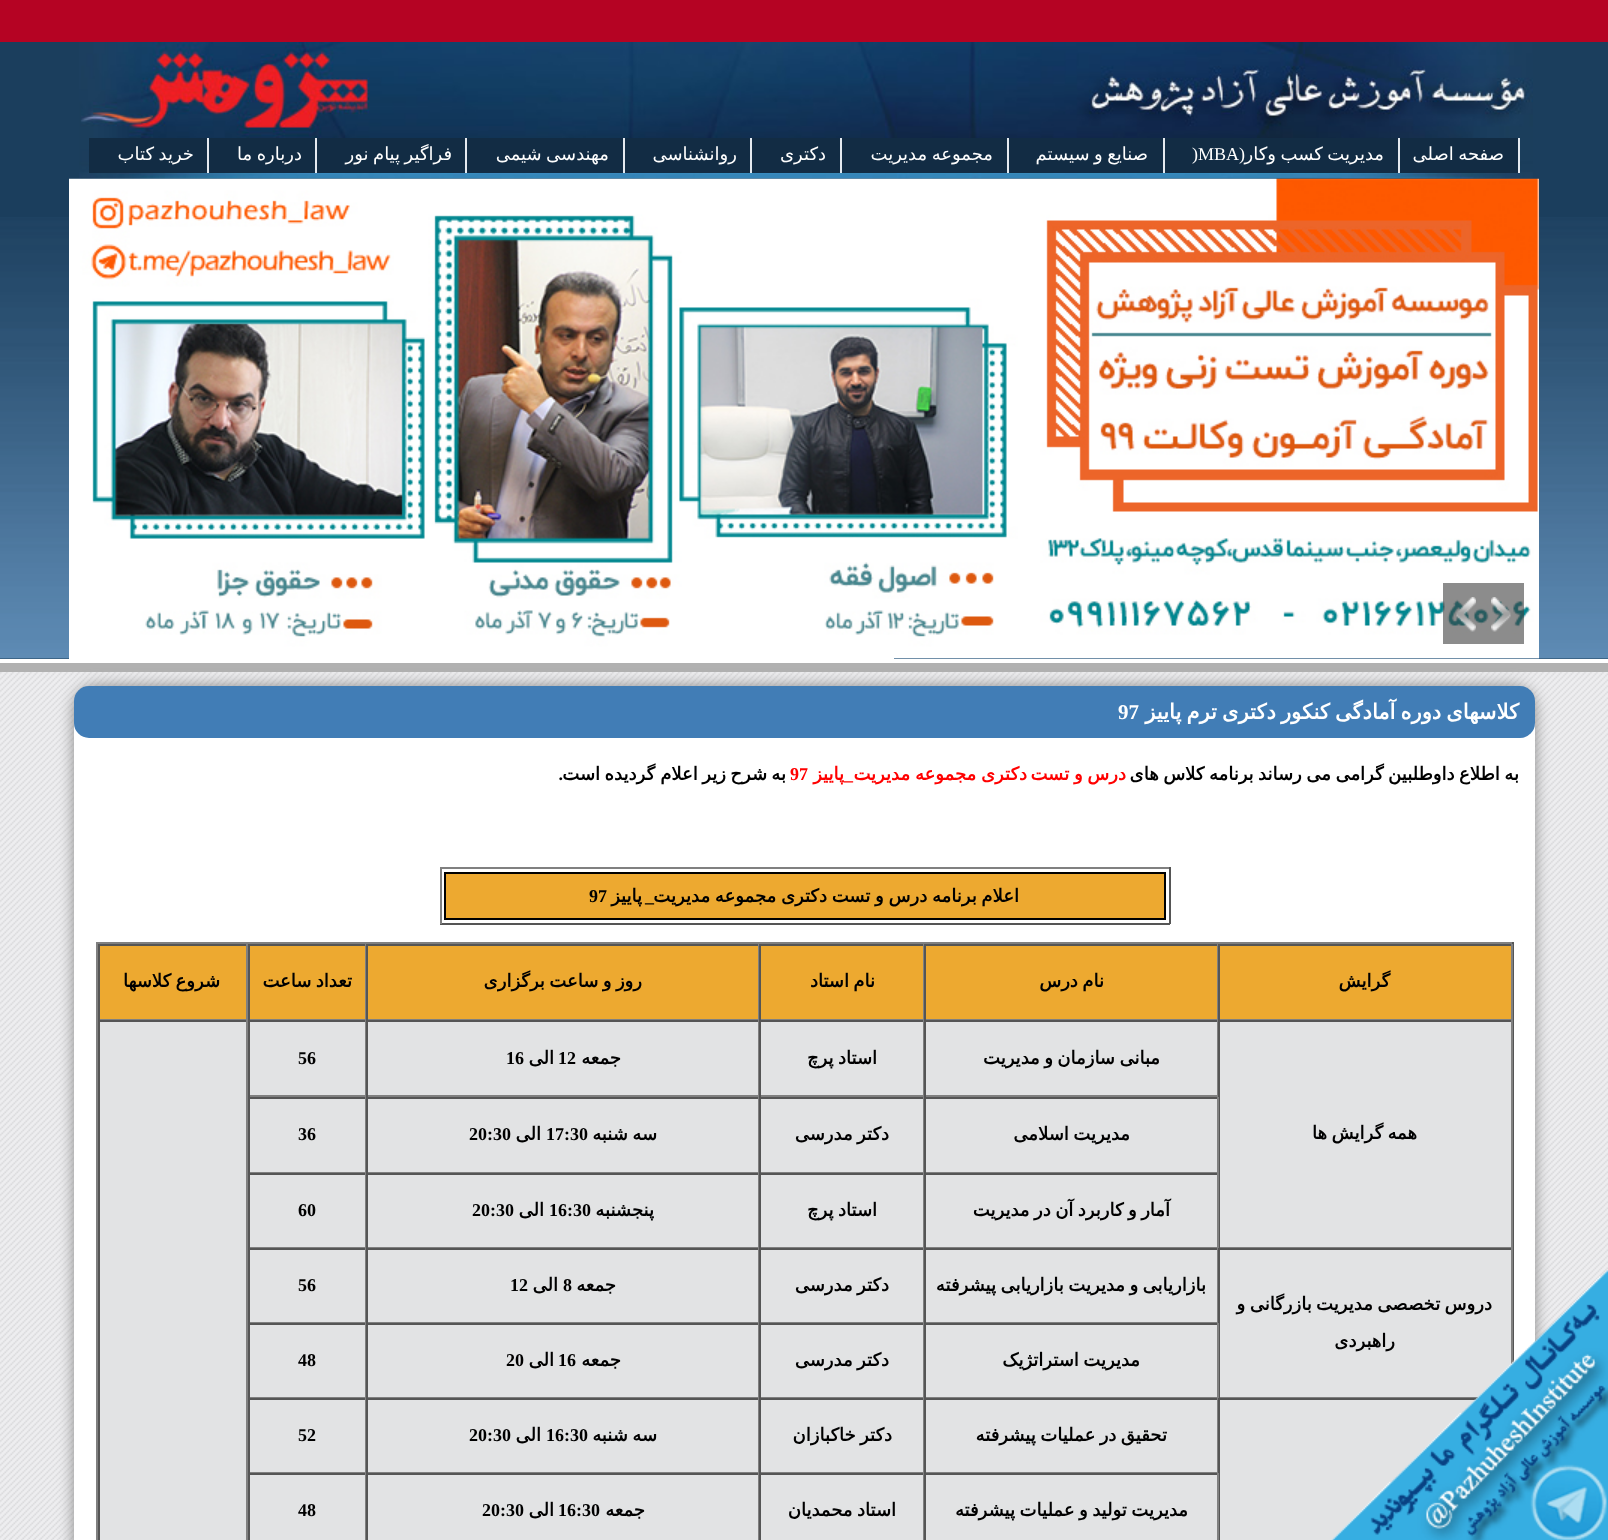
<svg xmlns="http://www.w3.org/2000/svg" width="1608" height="1540">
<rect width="100%" height="100%" fill="#fff"/>
<image x="0" y="672" width="1608" height="868" href="media/1.png"/>
<rect width="1608" height="42" fill="#b50323"/>
<rect y="42" width="1608" height="617" fill="#1b3e5d"/>
<image x="0" y="217" width="1608" height="442" href="media/2.png"/>
<image x="79" y="42" width="1454" height="137" href="media/3.png"/>
<rect x="1400" y="138" width="118" height="35" fill="#122c44"/>
<rect x="1518" y="138" width="2" height="35" fill="#e4e9ef"/>
<text x="1504" y="160" word-spacing="-1.25" style="font-family:DejaVu Sans;font-size:18px;direction:rtl;fill:#fff">صفحه اصلی</text>
<rect x="1165" y="138" width="233" height="35" fill="#122c44"/>
<rect x="1398" y="138" width="2" height="35" fill="#e4e9ef"/>
<text x="1245" y="160" style="font-family:Liberation Serif;font-size:18px;direction:rtl;fill:#fff">(</text>
<text x="1384" y="160" word-spacing="-1.25" style="font-family:DejaVu Sans;font-size:18px;direction:rtl;fill:#fff">مدیریت کسب وکار</text>
<text x="1192" y="160" style="font-family:Liberation Serif;font-size:18px;fill:#fff">)MBA</text>
<rect x="1009" y="138" width="154" height="35" fill="#122c44"/>
<rect x="1163" y="138" width="2" height="35" fill="#e4e9ef"/>
<text x="1148" y="160" word-spacing="-1.25" style="font-family:DejaVu Sans;font-size:18px;direction:rtl;fill:#fff">صنایع و سیستم</text>
<rect x="842" y="138" width="165" height="35" fill="#122c44"/>
<rect x="1007" y="138" width="2" height="35" fill="#e4e9ef"/>
<text x="993" y="160" word-spacing="-1.25" style="font-family:DejaVu Sans;font-size:18px;direction:rtl;fill:#fff">مجموعه مدیریت</text>
<rect x="752" y="138" width="88" height="35" fill="#122c44"/>
<rect x="840" y="138" width="2" height="35" fill="#e4e9ef"/>
<text x="826" y="160" style="font-family:DejaVu Sans;font-size:18px;direction:rtl;fill:#fff">دکتری</text>
<rect x="625" y="138" width="125" height="35" fill="#122c44"/>
<rect x="750" y="138" width="2" height="35" fill="#e4e9ef"/>
<text x="737" y="160" style="font-family:DejaVu Sans;font-size:18px;direction:rtl;fill:#fff">روانشناسی</text>
<rect x="467" y="138" width="156" height="35" fill="#122c44"/>
<rect x="623" y="138" width="2" height="35" fill="#e4e9ef"/>
<text x="609" y="160" word-spacing="-1.25" style="font-family:DejaVu Sans;font-size:18px;direction:rtl;fill:#fff">مهندسی شیمی</text>
<rect x="317" y="138" width="148" height="35" fill="#122c44"/>
<rect x="465" y="138" width="2" height="35" fill="#e4e9ef"/>
<text x="452" y="160" word-spacing="-1.25" style="font-family:DejaVu Sans;font-size:18px;direction:rtl;fill:#fff">فراگیر پیام نور</text>
<rect x="209" y="138" width="106" height="35" fill="#122c44"/>
<rect x="315" y="138" width="2" height="35" fill="#e4e9ef"/>
<text x="302" y="160" word-spacing="-1.25" style="font-family:DejaVu Sans;font-size:18px;direction:rtl;fill:#fff">درباره ما</text>
<rect x="89" y="138" width="118" height="35" fill="#122c44"/>
<rect x="207" y="138" width="2" height="35" fill="#e4e9ef"/>
<text x="194" y="160" word-spacing="-1.25" style="font-family:DejaVu Sans;font-size:18px;direction:rtl;fill:#fff">خرید کتاب</text>
<rect x="69" y="658" width="825" height="1" fill="#fff"/>
<rect x="894" y="658" width="645" height="1" fill="#ffffff0a"/>
<image x="69" y="178" width="1470" height="481" href="media/4.png"/>
<rect x="1443" y="583" width="81" height="61" fill="#3f3f3f99"/>
<image x="1491" y="597" width="20" height="35" href="media/5.png"/>
<image x="1456" y="597" width="20" height="35" href="media/6.png"/>
<rect y="663" width="1608" height="9" fill="#b1b1b1"/>
<rect x="74" y="686" width="1461" height="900" rx="23" fill="#888" filter="blur(7.5px)"/>
<rect x="74" y="686" width="1461" height="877" rx="23" fill="#fff"/>
<rect x="74" y="686" width="1461" height="52" rx="15" fill="#417db6"/>
<text x="1519" y="719" word-spacing="-1.5" style="font-family:DejaVu Sans;font-size:21px;font-weight:bold;direction:rtl;fill:#fff">کلاسهای دوره آمادگی کنکور دکتری ترم پاییز</text>
<text x="1118" y="719" style="font-family:Liberation Serif;font-size:21px;font-weight:bold;fill:#fff">97</text>
<text x="1519" y="780" word-spacing="-1.25" style="font-family:DejaVu Sans;font-size:18px;font-weight:bold;direction:rtl;fill:#000">به اطلاع داوطلبین گرامی می رساند برنامه کلاس های</text>
<text x="1126" y="780" word-spacing="-1" style="font-family:DejaVu Sans;font-size:18px;font-weight:bold;direction:rtl;fill:#f00">درس و تست</text>
<text x="1027" y="780" word-spacing="-1" style="font-family:DejaVu Sans;font-size:18px;font-weight:bold;direction:rtl;fill:#f00">دکتری مجموعه مدیریت</text>
<text x="844" y="780" style="font-family:DejaVu Sans;font-size:18px;font-weight:bold;direction:rtl;fill:#f00">پاییز</text>
<text x="790" y="780" style="font-family:Liberation Serif;font-size:18px;font-weight:bold;fill:#f00">97</text>
<text x="786" y="780" style="font-family:DejaVu Sans;font-size:18px;font-weight:bold;direction:rtl;fill:#000">به</text>
<text x="767" y="780" word-spacing="-1.25" style="font-family:DejaVu Sans;font-size:18px;font-weight:bold;direction:rtl;fill:#000">شرح زیر اعلام</text>
<text x="655" y="780" style="font-family:DejaVu Sans;font-size:18px;font-weight:bold;direction:rtl;fill:#000">گردیده</text>
<text x="600" y="780" style="font-family:DejaVu Sans;font-size:18px;font-weight:bold;direction:rtl;fill:#000">است</text>
<text x="563" y="780" style="font-family:Liberation Serif;font-size:18px;font-weight:bold;direction:rtl;fill:#000">.</text>
<text x="853" y="780" style="font-family:Liberation Serif;font-size:18px;font-weight:bold;direction:rtl;fill:#f00">_</text>
<rect x="440" y="867" width="730" height="2" fill="#808080"/>
<rect x="1169" y="867" width="2" height="57" fill="#555"/>
<rect x="440" y="923" width="730" height="2" fill="#555"/>
<rect x="440" y="867" width="2" height="57" fill="#808080"/>
<rect x="445" y="873" width="720" height="46" fill="#eda930" stroke="#000" stroke-width="2"/>
<text x="1019" y="902" word-spacing="-1" style="font-family:DejaVu Sans;font-size:18px;font-weight:bold;direction:rtl;fill:#000">اعلام برنامه درس و تست دکتری مجموعه مدیریت</text>
<text x="642" y="902" style="font-family:DejaVu Sans;font-size:18px;font-weight:bold;direction:rtl;fill:#000">پاییز</text>
<text x="589" y="902" style="font-family:Liberation Serif;font-size:18px;font-weight:bold;fill:#000">97</text>
<text x="654" y="902" style="font-family:Liberation Serif;font-size:18px;font-weight:bold;direction:rtl;fill:#000">_</text>
<rect x="100" y="1022" width="1411" height="518" fill="#e2e3e4"/>
<rect x="96" y="942" width="1418" height="2" fill="#808080"/>
<rect x="1512" y="942" width="2" height="421" fill="#555"/>
<rect x="96" y="942" width="2" height="598" fill="#808080"/>
<rect x="100" y="946" width="1411" height="73" fill="#eda930"/>
<rect x="98" y="944" width="1414" height="2" fill="#555"/>
<rect x="1511" y="944" width="2" height="76" fill="#808080"/>
<rect x="1218" y="1019" width="294" height="1" fill="#808080"/>
<rect x="1218" y="944" width="2" height="76" fill="#555"/>
<text x="1390" y="987" style="font-family:DejaVu Sans;font-size:18px;font-weight:bold;direction:rtl;fill:#000">گرایش</text>
<rect x="1217" y="944" width="1" height="76" fill="#808080"/>
<rect x="924" y="1019" width="294" height="1" fill="#808080"/>
<rect x="924" y="944" width="2" height="76" fill="#555"/>
<text x="1104" y="987" word-spacing="-1.25" style="font-family:DejaVu Sans;font-size:18px;font-weight:bold;direction:rtl;fill:#000">نام درس</text>
<rect x="923" y="944" width="1" height="76" fill="#808080"/>
<rect x="759" y="1019" width="165" height="1" fill="#808080"/>
<rect x="759" y="944" width="2" height="76" fill="#555"/>
<text x="875" y="987" word-spacing="-1.25" style="font-family:DejaVu Sans;font-size:18px;font-weight:bold;direction:rtl;fill:#000">نام استاد</text>
<rect x="758" y="944" width="1" height="76" fill="#808080"/>
<rect x="366" y="1019" width="393" height="1" fill="#808080"/>
<rect x="366" y="944" width="2" height="76" fill="#555"/>
<text x="642" y="987" word-spacing="-1.25" style="font-family:DejaVu Sans;font-size:18px;font-weight:bold;direction:rtl;fill:#000">روز و ساعت برگزاری</text>
<rect x="365" y="944" width="1" height="76" fill="#808080"/>
<rect x="248" y="1019" width="118" height="1" fill="#808080"/>
<rect x="248" y="944" width="2" height="76" fill="#555"/>
<text x="352" y="987" word-spacing="-1.25" style="font-family:DejaVu Sans;font-size:18px;font-weight:bold;direction:rtl;fill:#000">تعداد ساعت</text>
<rect x="246" y="944" width="2" height="76" fill="#808080"/>
<rect x="98" y="1019" width="150" height="1" fill="#808080"/>
<rect x="98" y="944" width="2" height="76" fill="#555"/>
<text x="220" y="987" word-spacing="-1.25" style="font-family:DejaVu Sans;font-size:18px;font-weight:bold;direction:rtl;fill:#000">شروع کلاسها</text>
<rect x="98" y="1020" width="1414" height="2" fill="#555"/>
<rect x="246" y="1020" width="2" height="520" fill="#808080"/>
<rect x="98" y="1020" width="2" height="520" fill="#555"/>
<rect x="1217" y="1020" width="1" height="77" fill="#808080"/>
<rect x="924" y="1095" width="294" height="2" fill="#808080"/>
<rect x="924" y="1020" width="2" height="77" fill="#555"/>
<text x="1160" y="1064" word-spacing="-1.25" style="font-family:DejaVu Sans;font-size:18px;font-weight:bold;direction:rtl;fill:#000">مبانی سازمان و مدیریت</text>
<rect x="923" y="1020" width="1" height="77" fill="#808080"/>
<rect x="759" y="1095" width="165" height="2" fill="#808080"/>
<rect x="759" y="1020" width="2" height="77" fill="#555"/>
<text x="877" y="1064" word-spacing="-1.25" style="font-family:DejaVu Sans;font-size:18px;font-weight:bold;direction:rtl;fill:#000">استاد پرچ</text>
<rect x="758" y="1020" width="1" height="77" fill="#808080"/>
<rect x="366" y="1095" width="393" height="2" fill="#808080"/>
<rect x="366" y="1020" width="2" height="77" fill="#555"/>
<text x="621" y="1064" style="font-family:DejaVu Sans;font-size:18px;font-weight:bold;direction:rtl;fill:#000">جمعه</text>
<text x="558" y="1064" style="font-family:Liberation Serif;font-size:18px;font-weight:bold;fill:#000">12</text>
<text x="554" y="1064" style="font-family:DejaVu Sans;font-size:18px;font-weight:bold;direction:rtl;fill:#000">الی</text>
<text x="506" y="1064" style="font-family:Liberation Serif;font-size:18px;font-weight:bold;fill:#000">16</text>
<rect x="365" y="1020" width="1" height="77" fill="#808080"/>
<rect x="248" y="1095" width="118" height="2" fill="#808080"/>
<rect x="248" y="1020" width="2" height="77" fill="#555"/>
<text x="298" y="1064" style="font-family:Liberation Serif;font-size:18px;font-weight:bold;fill:#000">56</text>
<rect x="1511" y="1020" width="2" height="228" fill="#808080"/>
<rect x="1218" y="1247" width="294" height="1" fill="#808080"/>
<rect x="1218" y="1020" width="2" height="228" fill="#555"/>
<text x="1417" y="1139" word-spacing="-1.25" style="font-family:DejaVu Sans;font-size:18px;font-weight:bold;direction:rtl;fill:#000">همه گرایش ها</text>
<rect x="248" y="1097" width="970" height="2" fill="#555"/>
<rect x="1217" y="1097" width="2" height="76" fill="#808080"/>
<rect x="924" y="1172" width="294" height="1" fill="#808080"/>
<rect x="924" y="1097" width="2" height="76" fill="#555"/>
<text x="1130" y="1140" word-spacing="-1.25" style="font-family:DejaVu Sans;font-size:18px;font-weight:bold;direction:rtl;fill:#000">مدیریت اسلامی</text>
<rect x="923" y="1097" width="1" height="76" fill="#808080"/>
<rect x="759" y="1172" width="165" height="1" fill="#808080"/>
<rect x="759" y="1097" width="2" height="76" fill="#555"/>
<text x="889" y="1140" word-spacing="-1.25" style="font-family:DejaVu Sans;font-size:18px;font-weight:bold;direction:rtl;fill:#000">دکتر مدرسی</text>
<rect x="758" y="1097" width="1" height="76" fill="#808080"/>
<rect x="366" y="1172" width="393" height="1" fill="#808080"/>
<rect x="366" y="1097" width="2" height="76" fill="#555"/>
<text x="657" y="1140" word-spacing="-1.25" style="font-family:DejaVu Sans;font-size:18px;font-weight:bold;direction:rtl;fill:#000">سه شنبه</text>
<text x="546" y="1140" style="font-family:Liberation Serif;font-size:18px;font-weight:bold;fill:#000">17:30</text>
<text x="541" y="1140" style="font-family:DejaVu Sans;font-size:18px;font-weight:bold;direction:rtl;fill:#000">الی</text>
<text x="469" y="1140" style="font-family:Liberation Serif;font-size:18px;font-weight:bold;fill:#000">20:30</text>
<rect x="365" y="1097" width="1" height="76" fill="#808080"/>
<rect x="248" y="1172" width="118" height="1" fill="#808080"/>
<rect x="248" y="1097" width="2" height="76" fill="#555"/>
<text x="298" y="1140" style="font-family:Liberation Serif;font-size:18px;font-weight:bold;fill:#000">36</text>
<rect x="248" y="1173" width="970" height="2" fill="#555"/>
<rect x="1217" y="1173" width="2" height="75" fill="#808080"/>
<rect x="924" y="1247" width="294" height="1" fill="#808080"/>
<rect x="924" y="1173" width="2" height="75" fill="#555"/>
<text x="1170" y="1216" word-spacing="-1.25" style="font-family:DejaVu Sans;font-size:18px;font-weight:bold;direction:rtl;fill:#000">آمار و کاربرد آن در مدیریت</text>
<rect x="923" y="1173" width="1" height="75" fill="#808080"/>
<rect x="759" y="1247" width="165" height="1" fill="#808080"/>
<rect x="759" y="1173" width="2" height="75" fill="#555"/>
<text x="877" y="1216" word-spacing="-1.25" style="font-family:DejaVu Sans;font-size:18px;font-weight:bold;direction:rtl;fill:#000">استاد پرچ</text>
<rect x="758" y="1173" width="1" height="75" fill="#808080"/>
<rect x="366" y="1247" width="393" height="1" fill="#808080"/>
<rect x="366" y="1173" width="2" height="75" fill="#555"/>
<text x="654" y="1216" style="font-family:DejaVu Sans;font-size:18px;font-weight:bold;direction:rtl;fill:#000">پنجشنبه</text>
<text x="549" y="1216" style="font-family:Liberation Serif;font-size:18px;font-weight:bold;fill:#000">16:30</text>
<text x="544" y="1216" style="font-family:DejaVu Sans;font-size:18px;font-weight:bold;direction:rtl;fill:#000">الی</text>
<text x="472" y="1216" style="font-family:Liberation Serif;font-size:18px;font-weight:bold;fill:#000">20:30</text>
<rect x="365" y="1173" width="1" height="75" fill="#808080"/>
<rect x="248" y="1247" width="118" height="1" fill="#808080"/>
<rect x="248" y="1173" width="2" height="75" fill="#555"/>
<text x="298" y="1216" style="font-family:Liberation Serif;font-size:18px;font-weight:bold;fill:#000">60</text>
<rect x="248" y="1248" width="1264" height="2" fill="#555"/>
<rect x="1217" y="1248" width="1" height="75" fill="#808080"/>
<rect x="924" y="1322" width="294" height="1" fill="#808080"/>
<rect x="924" y="1248" width="2" height="75" fill="#555"/>
<text x="1206" y="1291" word-spacing="-1.25" style="font-family:DejaVu Sans;font-size:18px;font-weight:bold;direction:rtl;fill:#000">بازاریابی و مدیریت بازاریابی پیشرفته</text>
<rect x="923" y="1248" width="1" height="75" fill="#808080"/>
<rect x="759" y="1322" width="165" height="1" fill="#808080"/>
<rect x="759" y="1248" width="2" height="75" fill="#555"/>
<text x="889" y="1291" word-spacing="-1.25" style="font-family:DejaVu Sans;font-size:18px;font-weight:bold;direction:rtl;fill:#000">دکتر مدرسی</text>
<rect x="758" y="1248" width="1" height="75" fill="#808080"/>
<rect x="366" y="1322" width="393" height="1" fill="#808080"/>
<rect x="366" y="1248" width="2" height="75" fill="#555"/>
<text x="616" y="1291" style="font-family:DejaVu Sans;font-size:18px;font-weight:bold;direction:rtl;fill:#000">جمعه</text>
<text x="563" y="1291" style="font-family:Liberation Serif;font-size:18px;font-weight:bold;fill:#000">8</text>
<text x="558" y="1291" style="font-family:DejaVu Sans;font-size:18px;font-weight:bold;direction:rtl;fill:#000">الی</text>
<text x="510" y="1291" style="font-family:Liberation Serif;font-size:18px;font-weight:bold;fill:#000">12</text>
<rect x="365" y="1248" width="1" height="75" fill="#808080"/>
<rect x="248" y="1322" width="118" height="1" fill="#808080"/>
<rect x="248" y="1248" width="2" height="75" fill="#555"/>
<text x="298" y="1291" style="font-family:Liberation Serif;font-size:18px;font-weight:bold;fill:#000">56</text>
<rect x="1511" y="1248" width="2" height="116" fill="#808080"/>
<rect x="1218" y="1397" width="260" height="1" fill="#808080"/>
<rect x="1218" y="1248" width="2" height="150" fill="#555"/>
<text x="1492" y="1310" word-spacing="-1.25" style="font-family:DejaVu Sans;font-size:18px;font-weight:bold;direction:rtl;fill:#000">دروس تخصصی مدیریت بازرگانی و</text>
<text x="1395" y="1347" style="font-family:DejaVu Sans;font-size:18px;font-weight:bold;direction:rtl;fill:#000">راهبردی</text>
<rect x="248" y="1323" width="970" height="2" fill="#555"/>
<rect x="1217" y="1323" width="2" height="75" fill="#808080"/>
<rect x="924" y="1397" width="294" height="1" fill="#808080"/>
<rect x="924" y="1323" width="2" height="75" fill="#555"/>
<text x="1140" y="1366" word-spacing="-1.25" style="font-family:DejaVu Sans;font-size:18px;font-weight:bold;direction:rtl;fill:#000">مدیریت استراتژیک</text>
<rect x="923" y="1323" width="1" height="75" fill="#808080"/>
<rect x="759" y="1397" width="165" height="1" fill="#808080"/>
<rect x="759" y="1323" width="2" height="75" fill="#555"/>
<text x="889" y="1366" word-spacing="-1.25" style="font-family:DejaVu Sans;font-size:18px;font-weight:bold;direction:rtl;fill:#000">دکتر مدرسی</text>
<rect x="758" y="1323" width="1" height="75" fill="#808080"/>
<rect x="366" y="1397" width="393" height="1" fill="#808080"/>
<rect x="366" y="1323" width="2" height="75" fill="#555"/>
<text x="621" y="1366" style="font-family:DejaVu Sans;font-size:18px;font-weight:bold;direction:rtl;fill:#000">جمعه</text>
<text x="558" y="1366" style="font-family:Liberation Serif;font-size:18px;font-weight:bold;fill:#000">16</text>
<text x="554" y="1366" style="font-family:DejaVu Sans;font-size:18px;font-weight:bold;direction:rtl;fill:#000">الی</text>
<text x="506" y="1366" style="font-family:Liberation Serif;font-size:18px;font-weight:bold;fill:#000">20</text>
<rect x="365" y="1323" width="1" height="75" fill="#808080"/>
<rect x="248" y="1397" width="118" height="1" fill="#808080"/>
<rect x="248" y="1323" width="2" height="75" fill="#555"/>
<text x="298" y="1366" style="font-family:Liberation Serif;font-size:18px;font-weight:bold;fill:#000">48</text>
<rect x="248" y="1398" width="1230" height="2" fill="#555"/>
<rect x="1218" y="1398" width="2" height="142" fill="#555"/>
<rect x="1217" y="1398" width="1" height="75" fill="#808080"/>
<rect x="924" y="1472" width="294" height="1" fill="#808080"/>
<rect x="924" y="1398" width="2" height="75" fill="#555"/>
<text x="1167" y="1441" word-spacing="-1.25" style="font-family:DejaVu Sans;font-size:18px;font-weight:bold;direction:rtl;fill:#000">تحقیق در عملیات پیشرفته</text>
<rect x="923" y="1398" width="1" height="75" fill="#808080"/>
<rect x="759" y="1472" width="165" height="1" fill="#808080"/>
<rect x="759" y="1398" width="2" height="75" fill="#555"/>
<text x="892" y="1441" word-spacing="-1.25" style="font-family:DejaVu Sans;font-size:18px;font-weight:bold;direction:rtl;fill:#000">دکتر خاکبازان</text>
<rect x="758" y="1398" width="1" height="75" fill="#808080"/>
<rect x="366" y="1472" width="393" height="1" fill="#808080"/>
<rect x="366" y="1398" width="2" height="75" fill="#555"/>
<text x="657" y="1441" word-spacing="-1.25" style="font-family:DejaVu Sans;font-size:18px;font-weight:bold;direction:rtl;fill:#000">سه شنبه</text>
<text x="546" y="1441" style="font-family:Liberation Serif;font-size:18px;font-weight:bold;fill:#000">16:30</text>
<text x="541" y="1441" style="font-family:DejaVu Sans;font-size:18px;font-weight:bold;direction:rtl;fill:#000">الی</text>
<text x="469" y="1441" style="font-family:Liberation Serif;font-size:18px;font-weight:bold;fill:#000">20:30</text>
<rect x="365" y="1398" width="1" height="75" fill="#808080"/>
<rect x="248" y="1472" width="118" height="1" fill="#808080"/>
<rect x="248" y="1398" width="2" height="75" fill="#555"/>
<text x="298" y="1441" style="font-family:Liberation Serif;font-size:18px;font-weight:bold;fill:#000">52</text>
<rect x="248" y="1473" width="970" height="2" fill="#555"/>
<rect x="1217" y="1473" width="2" height="67" fill="#808080"/>
<rect x="924" y="1473" width="2" height="67" fill="#555"/>
<text x="1188" y="1516" word-spacing="-1.25" style="font-family:DejaVu Sans;font-size:18px;font-weight:bold;direction:rtl;fill:#000">مدیریت تولید و عملیات پیشرفته</text>
<rect x="923" y="1473" width="1" height="67" fill="#808080"/>
<rect x="759" y="1473" width="2" height="67" fill="#555"/>
<text x="896" y="1516" word-spacing="-1.25" style="font-family:DejaVu Sans;font-size:18px;font-weight:bold;direction:rtl;fill:#000">استاد محمدیان</text>
<rect x="758" y="1473" width="1" height="67" fill="#808080"/>
<rect x="366" y="1473" width="2" height="67" fill="#555"/>
<text x="645" y="1516" style="font-family:DejaVu Sans;font-size:18px;font-weight:bold;direction:rtl;fill:#000">جمعه</text>
<text x="558" y="1516" style="font-family:Liberation Serif;font-size:18px;font-weight:bold;fill:#000">16:30</text>
<text x="554" y="1516" style="font-family:DejaVu Sans;font-size:18px;font-weight:bold;direction:rtl;fill:#000">الی</text>
<text x="482" y="1516" style="font-family:Liberation Serif;font-size:18px;font-weight:bold;fill:#000">20:30</text>
<rect x="365" y="1473" width="1" height="67" fill="#808080"/>
<rect x="248" y="1473" width="2" height="67" fill="#555"/>
<text x="298" y="1516" style="font-family:Liberation Serif;font-size:18px;font-weight:bold;fill:#000">48</text>
<image x="1331" y="1270" width="277" height="270" href="media/7.png"/>
</svg>
